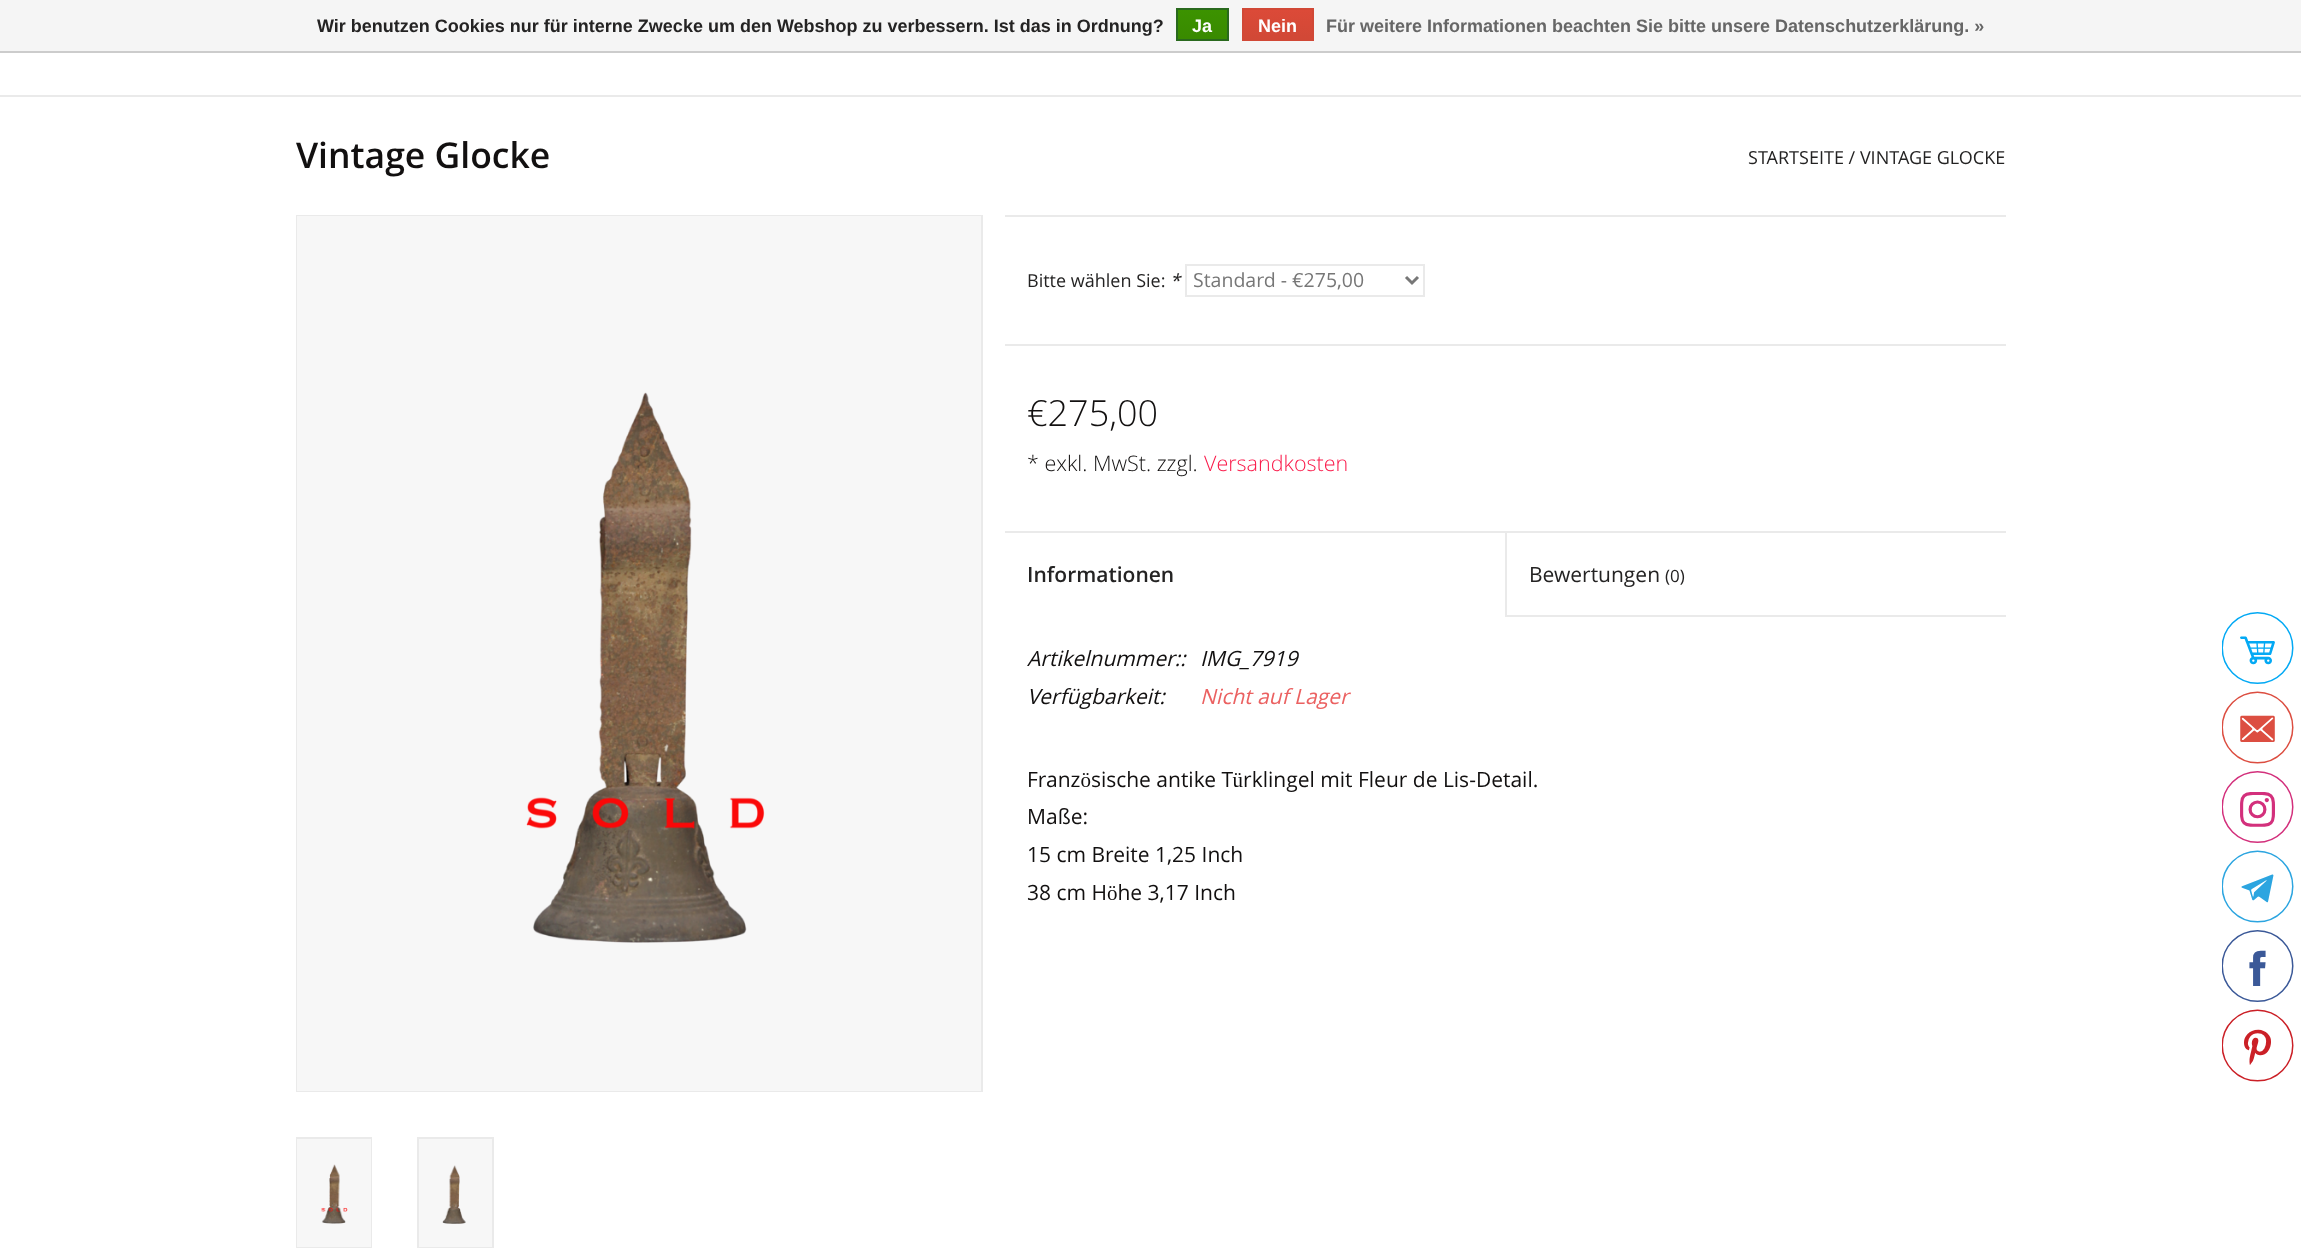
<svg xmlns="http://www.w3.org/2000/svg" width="2301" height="1260">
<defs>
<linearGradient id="g1" gradientUnits="userSpaceOnUse" x1="1202" y1="9" x2="1202" y2="39"><stop offset="0" stop-color="#3c9300"/><stop offset="1" stop-color="#398a00"/></linearGradient>
<linearGradient id="g2" gradientUnits="userSpaceOnUse" x1="1278" y1="9" x2="1278" y2="39"><stop offset="0" stop-color="#dc4a38"/><stop offset="1" stop-color="#d14836"/></linearGradient>
</defs>
<rect width="100%" height="100%" fill="#fff"/>
<rect width="2301" height="51" fill="#f5f5f5"/>
<rect y="51" width="2301" height="2" fill="#ccc"/>
<text x="317" y="32" style="font-family:Liberation Sans;font-size:18px;font-weight:bold;fill:#242323">Wir benutzen Cookies nur für interne Zwecke um den Webshop zu verbessern. Ist das in Ordnung?</text>
<rect x="1178" y="10" width="49" height="29" fill="url(#g1)"/>
<rect x="1177" y="9" width="51" height="31" fill="none" stroke="#29691d" stroke-width="2"/>
<text x="1192" y="32" style="font-family:Liberation Sans;font-size:18px;font-weight:bold;fill:#fff">Ja</text>
<rect x="1244" y="10" width="68" height="29" fill="url(#g2)"/>
<rect x="1243" y="9" width="70" height="31" fill="none" stroke="#d14836" stroke-width="2"/>
<text x="1258" y="32" style="font-family:Liberation Sans;font-size:18px;font-weight:bold;fill:#fff">Nein</text>
<text x="1326" y="32" style="font-family:Liberation Sans;font-size:18px;font-weight:bold;fill:#666">Für weitere Informationen beachten Sie bitte unsere Datenschutzerklärung. »</text>
<rect y="95" width="2301" height="2" fill="#eaeaea"/>
<text x="296" y="168" style="font-family:Open Sans;font-size:35.5px;font-weight:600;fill:#121010">Vintage Glocke</text>
<text x="1748" y="164" style="font-family:Open Sans;font-size:18px;fill:#242323">STARTSEITE / VINTAGE GLOCKE</text>
<rect x="297" y="216" width="685" height="875" fill="none" stroke="#eaeaea" stroke-width="2"/>
<rect x="297" y="216" width="684" height="875" fill="#f7f7f7"/>
<image x="526" y="392" width="239" height="551" href="media/1.png"/>
<rect x="297" y="1138" width="74" height="109" fill="none" stroke="#eaeaea" stroke-width="2"/>
<rect x="297" y="1139" width="74" height="108" fill="#f7f7f7"/>
<image x="321" y="1164" width="27" height="60" href="media/2.png"/>
<rect x="418" y="1138" width="75" height="109" fill="none" stroke="#eaeaea" stroke-width="2"/>
<rect x="419" y="1139" width="73" height="108" fill="#f7f7f7"/>
<image x="442" y="1165" width="24" height="59" href="media/3.png"/>
<rect x="1005" y="215" width="1001" height="2" fill="#eaeaea"/>
<text x="1027" y="287" style="font-family:Open Sans;font-size:18px;fill:#242323">Bitte wählen Sie:</text>
<text x="1170" y="287" style="font-family:Open Sans;font-size:18px;font-style:italic;fill:#242323">*</text>
<rect x="1186" y="265" width="238" height="31" fill="none" stroke="#eaeaea" stroke-width="2"/>
<path d="M1406 277l6 6l6-6" fill="none" stroke="#777" stroke-width="3"/>
<text x="1193" y="287" style="font-family:Open Sans;font-size:19.5px;fill:#777">Standard - €275,00</text>
<rect x="1005" y="344" width="1001" height="2" fill="#eaeaea"/>
<text x="1027" y="426" style="font-family:Open Sans;font-size:36px;font-weight:300;fill:#121010">€275,00</text>
<text x="1027" y="471" style="font-family:Open Sans;font-size:21.5px;font-weight:300;fill:#121010">* exkl. MwSt. zzgl.</text>
<text x="1204" y="471" style="font-family:Open Sans;font-size:21.5px;font-weight:300;fill:#fa1949">Versandkosten</text>
<rect x="1005" y="531" width="1001" height="2" fill="#eaeaea"/>
<text x="1027" y="582" style="font-family:Open Sans;font-size:21px;font-weight:600;fill:#242323">Informationen</text>
<rect x="1505" y="615" width="501" height="2" fill="#eaeaea"/>
<rect x="1505" y="533" width="2" height="84" fill="#eaeaea"/>
<text x="1529" y="582" style="font-family:Open Sans;font-size:21px;fill:#242323">Bewertungen</text>
<text x="1665" y="582" style="font-family:Open Sans;font-size:17px;fill:#242323">(0)</text>
<text x="1027" y="666" style="font-family:Open Sans;font-size:21px;font-style:italic;fill:#121010">Artikelnummer::</text>
<text x="1200" y="666" style="font-family:Open Sans;font-size:21px;font-style:italic;fill:#121010">IMG_7919</text>
<text x="1027" y="704" style="font-family:Open Sans;font-size:21px;font-style:italic;fill:#121010">Verfügbarkeit:</text>
<text x="1200" y="704" style="font-family:Open Sans;font-size:21px;font-style:italic;fill:#eb6161">Nicht auf Lager</text>
<text x="1027" y="787" style="font-family:Open Sans;font-size:21px;fill:#121010">Französische antike Türklingel mit Fleur de Lis-Detail.</text>
<text x="1027" y="824" style="font-family:Open Sans;font-size:21px;fill:#121010">Maße:</text>
<text x="1027" y="862" style="font-family:Open Sans;font-size:21px;fill:#121010">15 cm Breite 1,25 Inch</text>
<text x="1027" y="900" style="font-family:Open Sans;font-size:21px;fill:#121010">38 cm Höhe 3,17 Inch</text>
<image x="2222" y="612" width="72" height="470" href="media/4.png"/>
</svg>
